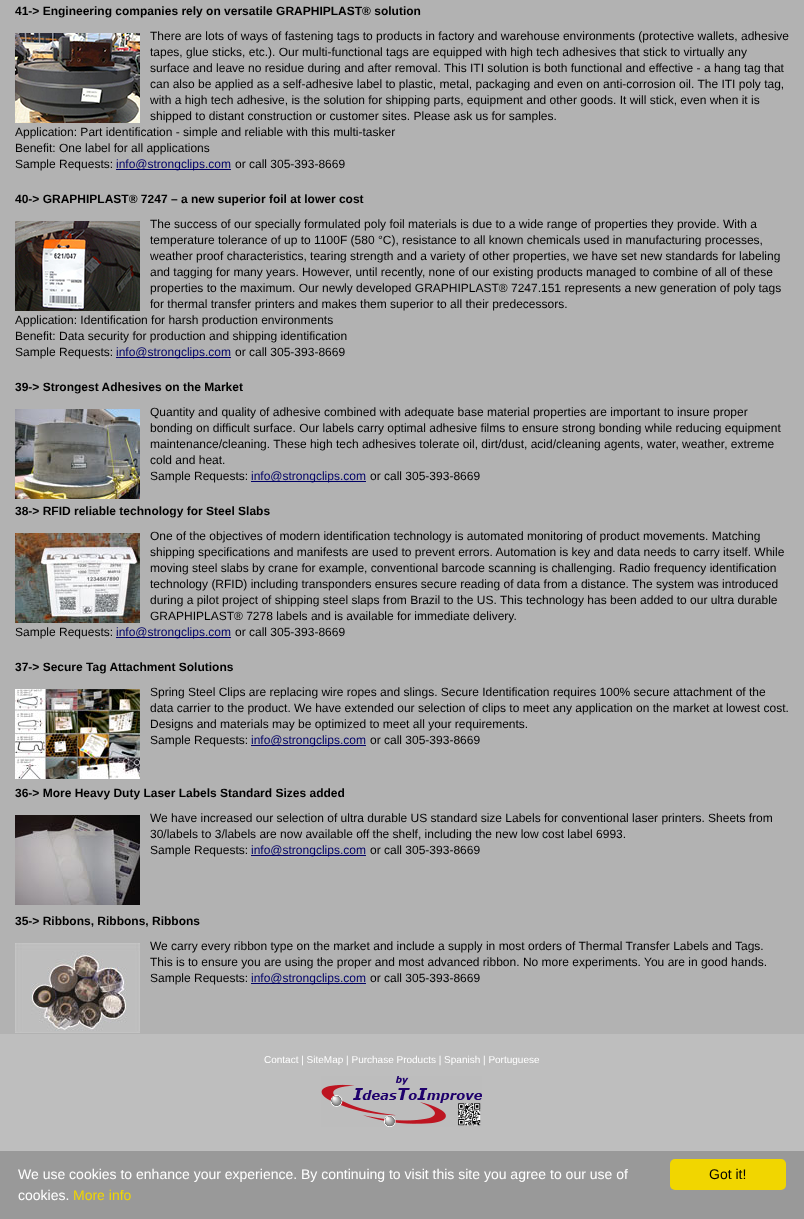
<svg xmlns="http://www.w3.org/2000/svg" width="804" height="1219">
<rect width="100%" height="100%" fill="#bebebe"/>
<rect width="804" height="1034" fill="#b2b2b2"/>
<text x="15" y="15" style="font-family:Liberation Sans;font-size:12px;font-weight:bold;fill:#000">41-&gt; Engineering companies rely on versatile GRAPHIPLAST® solution</text>
<image x="15" y="33" width="125" height="90" href="media/1.png"/>
<text x="150" y="40" style="font-family:Liberation Sans;font-size:12px;fill:#000">There are lots of ways of fastening tags to products in factory and warehouse environments (protective wallets, adhesive</text>
<text x="150" y="56" style="font-family:Liberation Sans;font-size:12px;fill:#000">tapes, glue sticks, etc.). Our multi-functional tags are equipped with high tech adhesives that stick to virtually any</text>
<text x="150" y="72" style="font-family:Liberation Sans;font-size:12px;fill:#000">surface and leave no residue during and after removal. This ITI solution is both functional and effective - a hang tag that</text>
<text x="150" y="88" style="font-family:Liberation Sans;font-size:12px;fill:#000">can also be applied as a self-adhesive label to plastic, metal, packaging and even on anti-corrosion oil. The ITI poly tag,</text>
<text x="150" y="104" style="font-family:Liberation Sans;font-size:12px;fill:#000">with a high tech adhesive, is the solution for shipping parts, equipment and other goods. It will stick, even when it is</text>
<text x="150" y="120" style="font-family:Liberation Sans;font-size:12px;fill:#000">shipped to distant construction or customer sites. Please ask us for samples.</text>
<text x="15" y="136" style="font-family:Liberation Sans;font-size:12px;fill:#000">Application: Part identification - simple and reliable with this multi-tasker</text>
<text x="15" y="152" style="font-family:Liberation Sans;font-size:12px;fill:#000">Benefit: One label for all applications</text>
<text x="15" y="168" style="font-family:Liberation Sans;font-size:12px;fill:#000">Sample Requests:</text>
<rect x="116" y="169" width="115" height="1" fill="#006"/>
<text x="116" y="168" style="font-family:Liberation Sans;font-size:12px;fill:#006">info@strongclips.com</text>
<text x="235" y="168" style="font-family:Liberation Sans;font-size:12px;fill:#000">or call 305-393-8669</text>
<text x="15" y="203" style="font-family:Liberation Sans;font-size:12px;font-weight:bold;fill:#000">40-&gt; GRAPHIPLAST® 7247 – a new superior foil at lower cost</text>
<image x="15" y="221" width="125" height="90" href="media/2.png"/>
<text x="150" y="228" style="font-family:Liberation Sans;font-size:12px;fill:#000">The success of our specially formulated poly foil materials is due to a wide range of properties they provide. With a</text>
<text x="150" y="244" style="font-family:Liberation Sans;font-size:12px;fill:#000">temperature tolerance of up to 1100F (580 °C), resistance to all known chemicals used in manufacturing processes,</text>
<text x="150" y="260" style="font-family:Liberation Sans;font-size:12px;fill:#000">weather proof characteristics, tearing strength and a variety of other properties, we have set new standards for labeling</text>
<text x="150" y="276" style="font-family:Liberation Sans;font-size:12px;fill:#000">and tagging for many years. However, until recently, none of our existing products managed to combine of all of these</text>
<text x="150" y="292" style="font-family:Liberation Sans;font-size:12px;fill:#000">properties to the maximum. Our newly developed GRAPHIPLAST® 7247.151 represents a new generation of poly tags</text>
<text x="150" y="308" style="font-family:Liberation Sans;font-size:12px;fill:#000">for thermal transfer printers and makes them superior to all their predecessors.</text>
<text x="15" y="324" style="font-family:Liberation Sans;font-size:12px;fill:#000">Application: Identification for harsh production environments</text>
<text x="15" y="340" style="font-family:Liberation Sans;font-size:12px;fill:#000">Benefit: Data security for production and shipping identification</text>
<text x="15" y="356" style="font-family:Liberation Sans;font-size:12px;fill:#000">Sample Requests:</text>
<rect x="116" y="357" width="115" height="1" fill="#006"/>
<text x="116" y="356" style="font-family:Liberation Sans;font-size:12px;fill:#006">info@strongclips.com</text>
<text x="235" y="356" style="font-family:Liberation Sans;font-size:12px;fill:#000">or call 305-393-8669</text>
<text x="15" y="391" style="font-family:Liberation Sans;font-size:12px;font-weight:bold;fill:#000">39-&gt; Strongest Adhesives on the Market</text>
<image x="15" y="409" width="125" height="90" href="media/3.png"/>
<text x="150" y="416" style="font-family:Liberation Sans;font-size:12px;fill:#000">Quantity and quality of adhesive combined with adequate base material properties are important to insure proper</text>
<text x="150" y="432" style="font-family:Liberation Sans;font-size:12px;fill:#000">bonding on difficult surface. Our labels carry optimal adhesive films to ensure strong bonding while reducing equipment</text>
<text x="150" y="448" style="font-family:Liberation Sans;font-size:12px;fill:#000">maintenance/cleaning. These high tech adhesives tolerate oil, dirt/dust, acid/cleaning agents, water, weather, extreme</text>
<text x="150" y="464" style="font-family:Liberation Sans;font-size:12px;fill:#000">cold and heat.</text>
<text x="150" y="480" style="font-family:Liberation Sans;font-size:12px;fill:#000">Sample Requests:</text>
<rect x="251" y="481" width="115" height="1" fill="#006"/>
<text x="251" y="480" style="font-family:Liberation Sans;font-size:12px;fill:#006">info@strongclips.com</text>
<text x="370" y="480" style="font-family:Liberation Sans;font-size:12px;fill:#000">or call 305-393-8669</text>
<text x="15" y="515" style="font-family:Liberation Sans;font-size:12px;font-weight:bold;fill:#000">38-&gt; RFID reliable technology for Steel Slabs</text>
<image x="15" y="533" width="125" height="90" href="media/4.png"/>
<text x="150" y="540" style="font-family:Liberation Sans;font-size:12px;fill:#000">One of the objectives of modern identification technology is automated monitoring of product movements. Matching</text>
<text x="150" y="556" style="font-family:Liberation Sans;font-size:12px;fill:#000">shipping specifications and manifests are used to prevent errors. Automation is key and data needs to carry itself. While</text>
<text x="150" y="572" style="font-family:Liberation Sans;font-size:12px;fill:#000">moving steel slabs by crane for example, conventional barcode scanning is challenging. Radio frequency identification</text>
<text x="150" y="588" style="font-family:Liberation Sans;font-size:12px;fill:#000">technology (RFID) including transponders ensures secure reading of data from a distance. The system was introduced</text>
<text x="150" y="604" style="font-family:Liberation Sans;font-size:12px;fill:#000">during a pilot project of shipping steel slaps from Brazil to the US. This technology has been added to our ultra durable</text>
<text x="150" y="620" style="font-family:Liberation Sans;font-size:12px;fill:#000">GRAPHIPLAST® 7278 labels and is available for immediate delivery.</text>
<text x="15" y="636" style="font-family:Liberation Sans;font-size:12px;fill:#000">Sample Requests:</text>
<rect x="116" y="637" width="115" height="1" fill="#006"/>
<text x="116" y="636" style="font-family:Liberation Sans;font-size:12px;fill:#006">info@strongclips.com</text>
<text x="235" y="636" style="font-family:Liberation Sans;font-size:12px;fill:#000">or call 305-393-8669</text>
<text x="15" y="671" style="font-family:Liberation Sans;font-size:12px;font-weight:bold;fill:#000">37-&gt; Secure Tag Attachment Solutions</text>
<image x="15" y="689" width="125" height="90" href="media/5.png"/>
<text x="150" y="696" style="font-family:Liberation Sans;font-size:12px;fill:#000">Spring Steel Clips are replacing wire ropes and slings. Secure Identification requires 100% secure attachment of the</text>
<text x="150" y="712" style="font-family:Liberation Sans;font-size:12px;fill:#000">data carrier to the product. We have extended our selection of clips to meet any application on the market at lowest cost.</text>
<text x="150" y="728" style="font-family:Liberation Sans;font-size:12px;fill:#000">Designs and materials may be optimized to meet all your requirements.</text>
<text x="150" y="744" style="font-family:Liberation Sans;font-size:12px;fill:#000">Sample Requests:</text>
<rect x="251" y="745" width="115" height="1" fill="#006"/>
<text x="251" y="744" style="font-family:Liberation Sans;font-size:12px;fill:#006">info@strongclips.com</text>
<text x="370" y="744" style="font-family:Liberation Sans;font-size:12px;fill:#000">or call 305-393-8669</text>
<text x="15" y="797" style="font-family:Liberation Sans;font-size:12px;font-weight:bold;fill:#000">36-&gt; More Heavy Duty Laser Labels Standard Sizes added</text>
<image x="15" y="815" width="125" height="90" href="media/6.png"/>
<text x="150" y="822" style="font-family:Liberation Sans;font-size:12px;fill:#000">We have increased our selection of ultra durable US standard size Labels for conventional laser printers. Sheets from</text>
<text x="150" y="838" style="font-family:Liberation Sans;font-size:12px;fill:#000">30/labels to 3/labels are now available off the shelf, including the new low cost label 6993.</text>
<text x="150" y="854" style="font-family:Liberation Sans;font-size:12px;fill:#000">Sample Requests:</text>
<rect x="251" y="855" width="115" height="1" fill="#006"/>
<text x="251" y="854" style="font-family:Liberation Sans;font-size:12px;fill:#006">info@strongclips.com</text>
<text x="370" y="854" style="font-family:Liberation Sans;font-size:12px;fill:#000">or call 305-393-8669</text>
<text x="15" y="925" style="font-family:Liberation Sans;font-size:12px;font-weight:bold;fill:#000">35-&gt; Ribbons, Ribbons, Ribbons</text>
<image x="15" y="943" width="125" height="90" href="media/7.png"/>
<text x="150" y="950" style="font-family:Liberation Sans;font-size:12px;fill:#000">We carry every ribbon type on the market and include a supply in most orders of Thermal Transfer Labels and Tags.</text>
<text x="150" y="966" style="font-family:Liberation Sans;font-size:12px;fill:#000">This is to ensure you are using the proper and most advanced ribbon. No more experiments. You are in good hands.</text>
<text x="150" y="982" style="font-family:Liberation Sans;font-size:12px;fill:#000">Sample Requests:</text>
<rect x="251" y="983" width="115" height="1" fill="#006"/>
<text x="251" y="982" style="font-family:Liberation Sans;font-size:12px;fill:#006">info@strongclips.com</text>
<text x="370" y="982" style="font-family:Liberation Sans;font-size:12px;fill:#000">or call 305-393-8669</text>
<text x="264" y="1063" style="font-family:Liberation Sans;font-size:10px;fill:#fff">Contact | SiteMap | Purchase Products | Spanish | Portuguese</text>
<image x="321" y="1076" width="161" height="51" href="media/8.png"/>
<rect y="1151" width="804" height="68" fill="#999"/>
<text x="18" y="1179" style="font-family:Liberation Sans;font-size:14px;fill:#fff">We use cookies to enhance your experience. By continuing to visit this site you agree to our use of</text>
<text x="18" y="1200" style="font-family:Liberation Sans;font-size:14px;fill:#fff">cookies.</text>
<text x="73" y="1200" style="font-family:Liberation Sans;font-size:14px;fill:#f1d600">More info</text>
<rect x="670" y="1159" width="116" height="31" rx="5" fill="#f1d600"/>
<text x="709" y="1179" style="font-family:Liberation Sans;font-size:14px;fill:#000">Got it!</text>
</svg>
